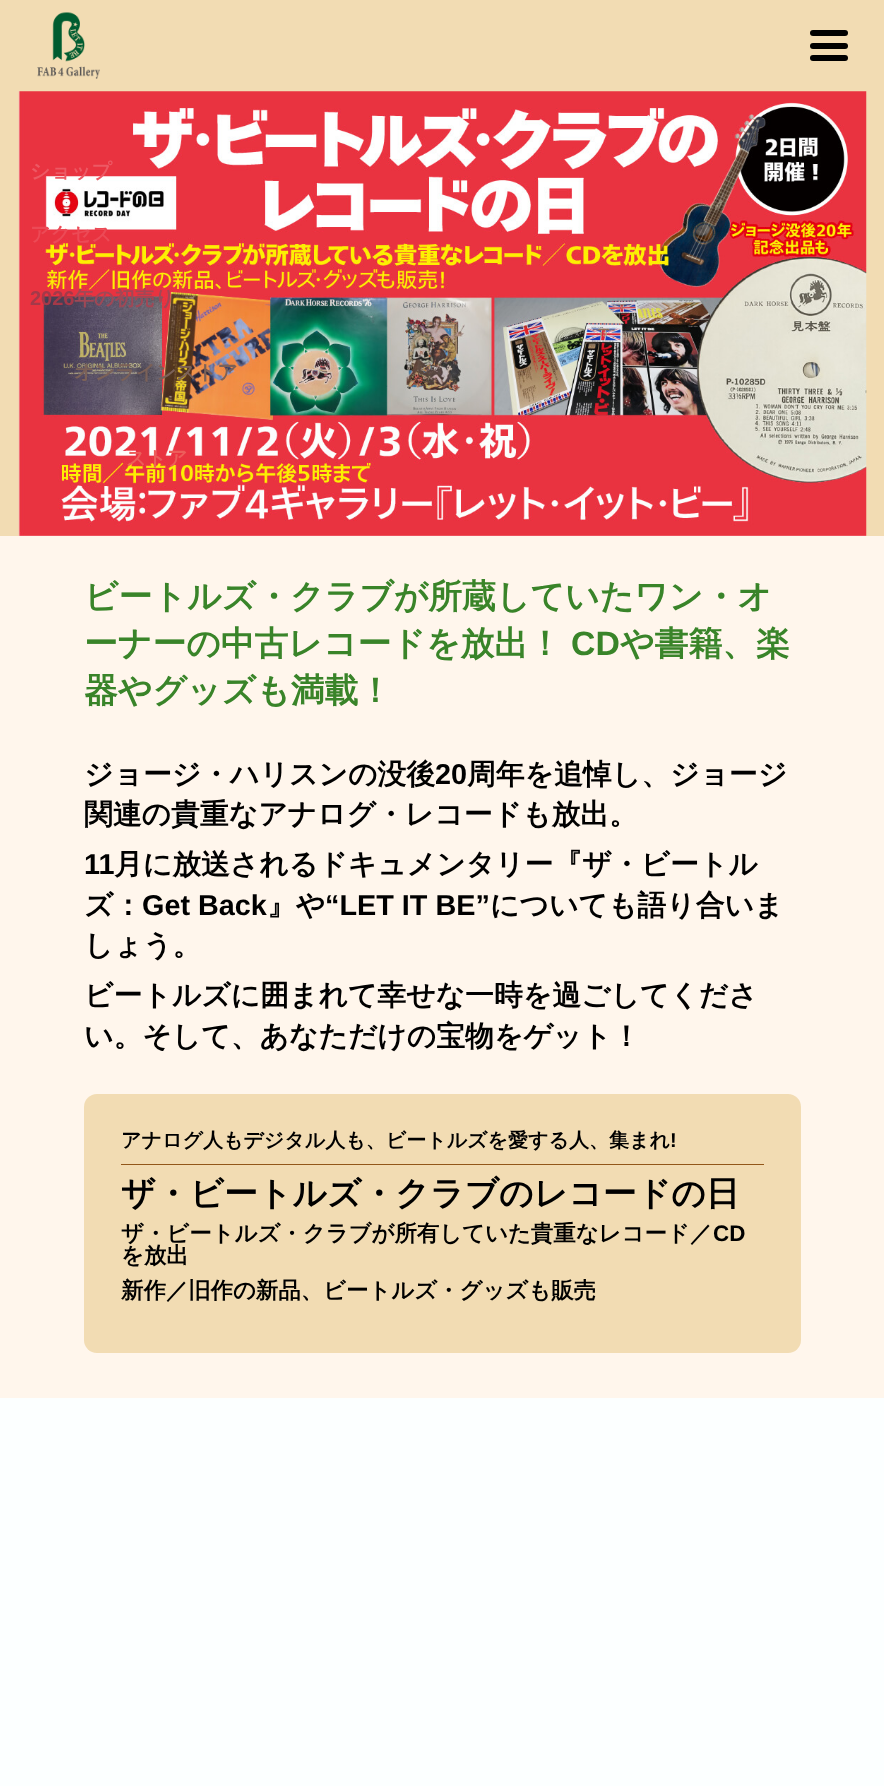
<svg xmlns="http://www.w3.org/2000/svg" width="884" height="1786">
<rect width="100%" height="100%" fill="#fcffff"/>
<rect width="884" height="536" fill="#f2dcb3"/>
<image x="18" y="91" width="849" height="445" href="media/2.png"/>
<text x="30" y="178" style="font-family:WenQuanYi Zen Hei;font-size:20px;font-weight:bold;fill:#ed5964">ショップ</text>
<text x="30" y="241" style="font-family:WenQuanYi Zen Hei;font-size:20px;font-weight:bold;fill:#ec4a56">アクセス</text>
<text x="30" y="305" style="font-family:Liberation Sans;font-size:20px;font-weight:bold;fill:#a43949">2026</text>
<text x="74" y="305" style="font-family:WenQuanYi Zen Hei;font-size:20px;font-weight:bold;fill:#a04856">年の初売り</text>
<text x="74" y="379" style="font-family:WenQuanYi Zen Hei;font-size:20px;font-weight:bold;fill:#7b6158">オンラインストア</text>
<text x="126" y="465" style="font-family:WenQuanYi Zen Hei;font-size:20px;font-weight:bold;fill:#ed5d5a">ストア</text>
<image x="37" y="12" width="63" height="67" href="media/1.png"/>
<rect x="810" y="30" width="38" height="6" rx="3" fill="#000"/>
<rect x="810" y="43" width="38" height="6" rx="3" fill="#000"/>
<rect x="810" y="55" width="38" height="6" rx="3" fill="#000"/>
<rect y="536" width="884" height="862" fill="#fff6ec"/>
<text x="84" y="608" style="font-family:WenQuanYi Zen Hei;font-size:33.8px;font-weight:bold;fill:#398429">ビートルズ・クラブが所蔵していたワン・オ</text>
<text x="84" y="655" style="font-family:WenQuanYi Zen Hei;font-size:33.8px;font-weight:bold;fill:#398429">ーナーの中古レコードを放出！</text>
<text x="571" y="655" style="font-family:Liberation Sans;font-size:33.8px;font-weight:bold;fill:#398429">CD</text>
<text x="620" y="655" style="font-family:WenQuanYi Zen Hei;font-size:33.8px;font-weight:bold;fill:#398429">や書籍、楽</text>
<text x="84" y="702" style="font-family:WenQuanYi Zen Hei;font-size:33.8px;font-weight:bold;fill:#398429">器やグッズも満載！</text>
<text x="84" y="784" style="font-family:WenQuanYi Zen Hei;font-size:28.8px;font-weight:bold;fill:#000">ジョージ・ハリスンの没後</text>
<text x="435" y="784" style="font-family:Liberation Sans;font-size:28.8px;font-weight:bold;fill:#000">20</text>
<text x="467" y="784" style="font-family:WenQuanYi Zen Hei;font-size:28.8px;font-weight:bold;fill:#000">周年を追悼し、ジョージ</text>
<text x="84" y="824" style="font-family:WenQuanYi Zen Hei;font-size:28.8px;font-weight:bold;fill:#000">関連の貴重なアナログ・レコードも放出。</text>
<text x="84" y="874" style="font-family:Liberation Sans;font-size:28.8px;font-weight:bold;fill:#000">11</text>
<text x="114" y="874" style="font-family:WenQuanYi Zen Hei;font-size:28.8px;font-weight:bold;fill:#000">月に放送されるドキュメンタリー『ザ・ビートル</text>
<text x="84" y="915" style="font-family:WenQuanYi Zen Hei;font-size:28.8px;font-weight:bold;fill:#000">ズ：</text>
<text x="142" y="915" style="font-family:Liberation Sans;font-size:28.8px;font-weight:bold;fill:#000">Get Back</text>
<text x="267" y="915" style="font-family:WenQuanYi Zen Hei;font-size:28.8px;font-weight:bold;fill:#000">』や</text>
<text x="325" y="915" style="font-family:Liberation Sans;font-size:28.8px;font-weight:bold;fill:#000">“LET IT BE”</text>
<text x="490" y="915" style="font-family:WenQuanYi Zen Hei;font-size:28.8px;font-weight:bold;fill:#000">についても語り合いま</text>
<text x="84" y="955" style="font-family:WenQuanYi Zen Hei;font-size:28.8px;font-weight:bold;fill:#000">しょう。</text>
<text x="84" y="1005" style="font-family:WenQuanYi Zen Hei;font-size:28.8px;font-weight:bold;fill:#000">ビートルズに囲まれて幸せな一時を過ごしてくださ</text>
<text x="84" y="1046" style="font-family:WenQuanYi Zen Hei;font-size:28.8px;font-weight:bold;fill:#000">い。そして、あなただけの宝物をゲット！</text>
<rect x="84" y="1094" width="717" height="259" rx="13" fill="#f2dcb3"/>
<text x="121" y="1147" style="font-family:WenQuanYi Zen Hei;font-size:20px;font-weight:bold;fill:#000">アナログ人もデジタル人も、ビートルズを愛する人、集まれ</text>
<text x="670" y="1147" style="font-family:Liberation Sans;font-size:20px;font-weight:bold;fill:#000">!</text>
<rect x="121" y="1164" width="643" height="1" fill="#92571a"/>
<text x="121" y="1205" style="font-family:WenQuanYi Zen Hei;font-size:33.8px;font-weight:bold;fill:#000">ザ・ビートルズ・クラブのレコードの日</text>
<text x="121" y="1241" style="font-family:WenQuanYi Zen Hei;font-size:22.4px;font-weight:bold;fill:#000">ザ・ビートルズ・クラブが所有していた貴重なレコード／</text>
<text x="713" y="1241" style="font-family:Liberation Sans;font-size:22.4px;font-weight:bold;fill:#000">CD</text>
<text x="121" y="1263" style="font-family:WenQuanYi Zen Hei;font-size:22.4px;font-weight:bold;fill:#000">を放出</text>
<text x="121" y="1298" style="font-family:WenQuanYi Zen Hei;font-size:22.4px;font-weight:bold;fill:#000">新作／旧作の新品、ビートルズ・グッズも販売</text>
</svg>
